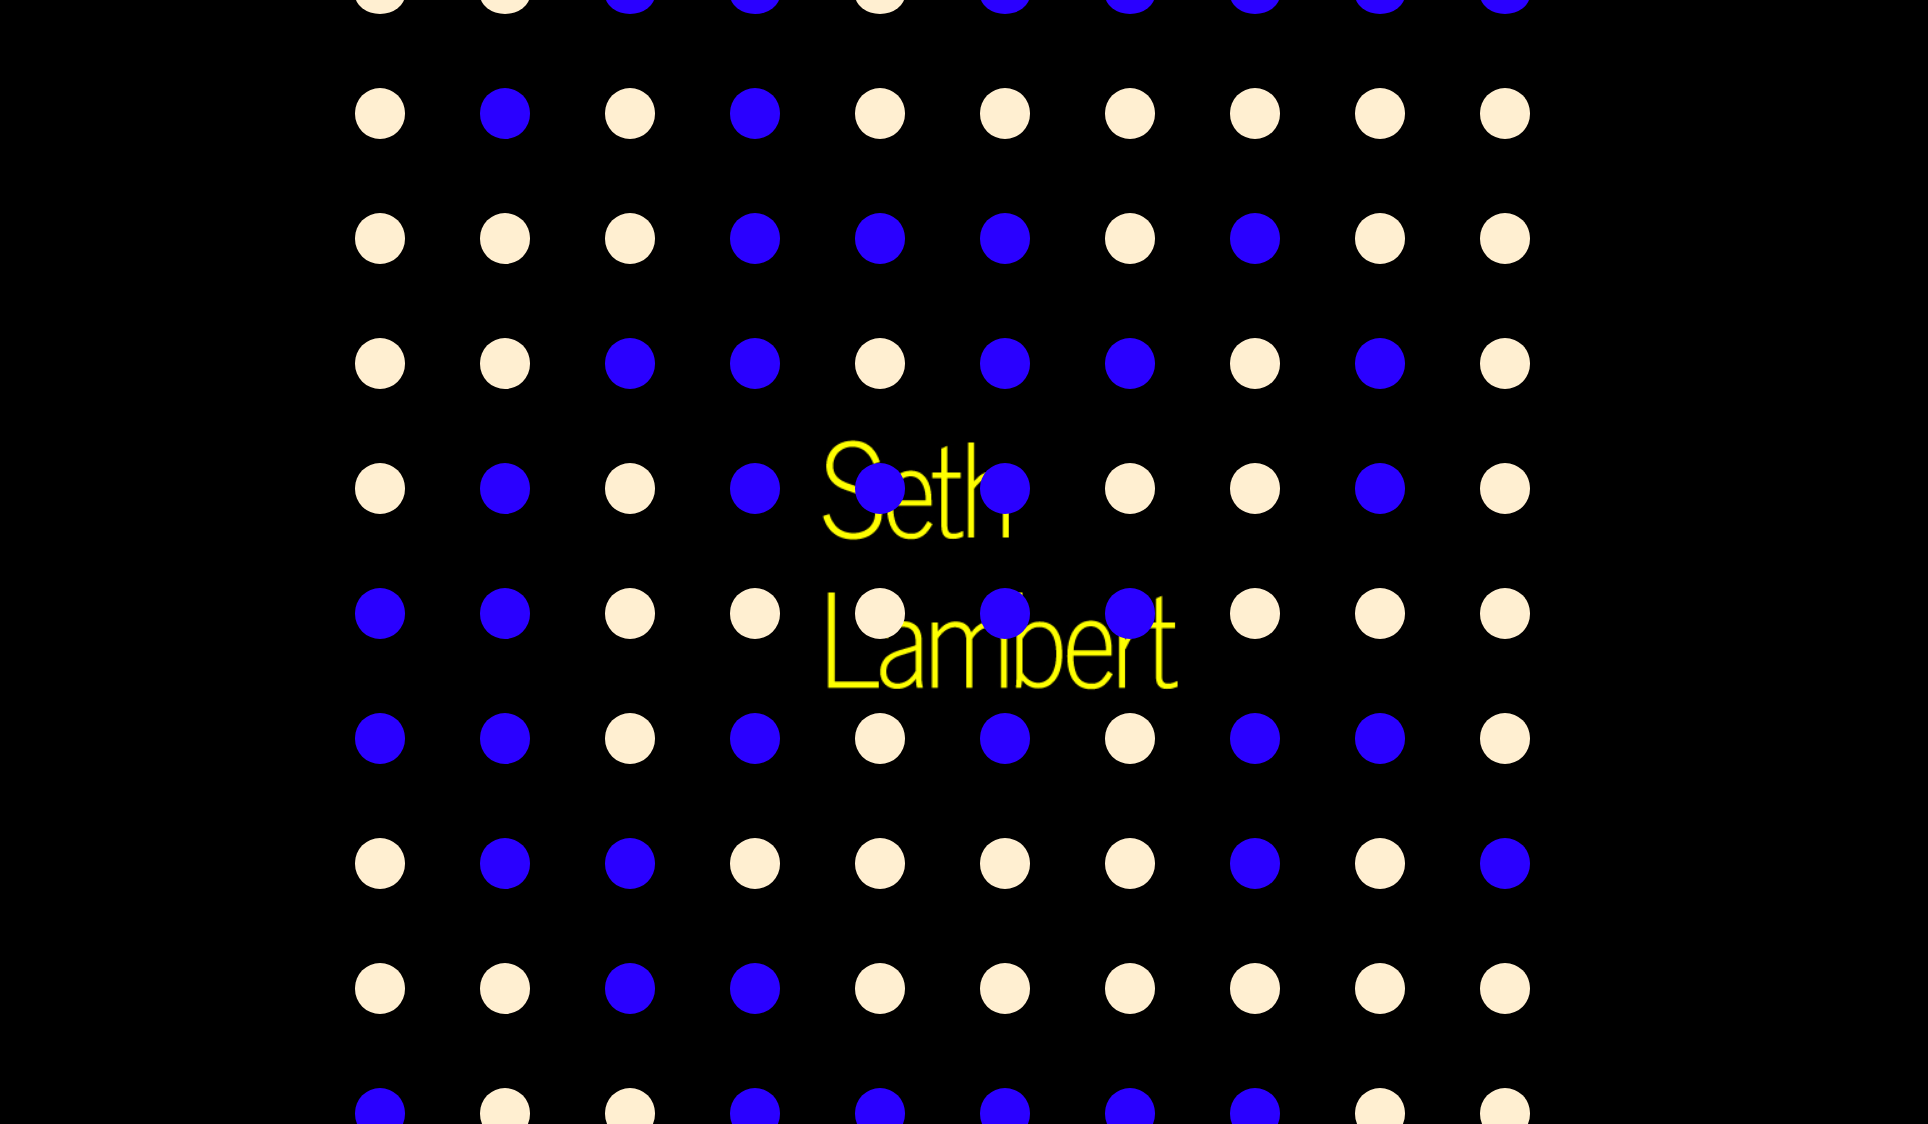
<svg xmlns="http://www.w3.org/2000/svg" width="1928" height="1124">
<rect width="100%" height="100%" fill="#000"/>
<image x="822" y="439" width="356" height="252" href="media/1.png"/>
<rect x="1480" y="1088" width="50" height="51" rx="25" fill="#ffefd1"/>
<rect x="1480" y="963" width="50" height="51" rx="25" fill="#ffefd1"/>
<rect x="1480" y="838" width="50" height="51" rx="25" fill="#2a00ff"/>
<rect x="1480" y="713" width="50" height="51" rx="25" fill="#ffefd1"/>
<rect x="1480" y="588" width="50" height="51" rx="25" fill="#ffefd1"/>
<rect x="1480" y="463" width="50" height="51" rx="25" fill="#ffefd1"/>
<rect x="1480" y="338" width="50" height="51" rx="25" fill="#ffefd1"/>
<rect x="1480" y="213" width="50" height="51" rx="25" fill="#ffefd1"/>
<rect x="1480" y="88" width="50" height="51" rx="25" fill="#ffefd1"/>
<rect x="1480" y="-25" width="50" height="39" rx="25" fill="#2a00ff"/>
<rect x="1355" y="1088" width="50" height="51" rx="25" fill="#ffefd1"/>
<rect x="1355" y="963" width="50" height="51" rx="25" fill="#ffefd1"/>
<rect x="1355" y="838" width="50" height="51" rx="25" fill="#ffefd1"/>
<rect x="1355" y="713" width="50" height="51" rx="25" fill="#2a00ff"/>
<rect x="1355" y="588" width="50" height="51" rx="25" fill="#ffefd1"/>
<rect x="1355" y="463" width="50" height="51" rx="25" fill="#2a00ff"/>
<rect x="1355" y="338" width="50" height="51" rx="25" fill="#2a00ff"/>
<rect x="1355" y="213" width="50" height="51" rx="25" fill="#ffefd1"/>
<rect x="1355" y="88" width="50" height="51" rx="25" fill="#ffefd1"/>
<rect x="1355" y="-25" width="50" height="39" rx="25" fill="#2a00ff"/>
<rect x="1230" y="1088" width="50" height="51" rx="25" fill="#2a00ff"/>
<rect x="1230" y="963" width="50" height="51" rx="25" fill="#ffefd1"/>
<rect x="1230" y="838" width="50" height="51" rx="25" fill="#2a00ff"/>
<rect x="1230" y="713" width="50" height="51" rx="25" fill="#2a00ff"/>
<rect x="1230" y="588" width="50" height="51" rx="25" fill="#ffefd1"/>
<rect x="1230" y="463" width="50" height="51" rx="25" fill="#ffefd1"/>
<rect x="1230" y="338" width="50" height="51" rx="25" fill="#ffefd1"/>
<rect x="1230" y="213" width="50" height="51" rx="25" fill="#2a00ff"/>
<rect x="1230" y="88" width="50" height="51" rx="25" fill="#ffefd1"/>
<rect x="1230" y="-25" width="50" height="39" rx="25" fill="#2a00ff"/>
<rect x="1105" y="1088" width="50" height="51" rx="25" fill="#2a00ff"/>
<rect x="1105" y="963" width="50" height="51" rx="25" fill="#ffefd1"/>
<rect x="1105" y="838" width="50" height="51" rx="25" fill="#ffefd1"/>
<rect x="1105" y="713" width="50" height="51" rx="25" fill="#ffefd1"/>
<rect x="1105" y="588" width="50" height="51" rx="25" fill="#2a00ff"/>
<rect x="1105" y="463" width="50" height="51" rx="25" fill="#ffefd1"/>
<rect x="1105" y="338" width="50" height="51" rx="25" fill="#2a00ff"/>
<rect x="1105" y="213" width="50" height="51" rx="25" fill="#ffefd1"/>
<rect x="1105" y="88" width="50" height="51" rx="25" fill="#ffefd1"/>
<rect x="1105" y="-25" width="50" height="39" rx="25" fill="#2a00ff"/>
<rect x="980" y="1088" width="50" height="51" rx="25" fill="#2a00ff"/>
<rect x="980" y="963" width="50" height="51" rx="25" fill="#ffefd1"/>
<rect x="980" y="838" width="50" height="51" rx="25" fill="#ffefd1"/>
<rect x="980" y="713" width="50" height="51" rx="25" fill="#2a00ff"/>
<rect x="980" y="588" width="50" height="51" rx="25" fill="#2a00ff"/>
<rect x="980" y="463" width="50" height="51" rx="25" fill="#2a00ff"/>
<rect x="980" y="338" width="50" height="51" rx="25" fill="#2a00ff"/>
<rect x="980" y="213" width="50" height="51" rx="25" fill="#2a00ff"/>
<rect x="980" y="88" width="50" height="51" rx="25" fill="#ffefd1"/>
<rect x="980" y="-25" width="50" height="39" rx="25" fill="#2a00ff"/>
<rect x="855" y="1088" width="50" height="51" rx="25" fill="#2a00ff"/>
<rect x="855" y="963" width="50" height="51" rx="25" fill="#ffefd1"/>
<rect x="855" y="838" width="50" height="51" rx="25" fill="#ffefd1"/>
<rect x="855" y="713" width="50" height="51" rx="25" fill="#ffefd1"/>
<rect x="855" y="588" width="50" height="51" rx="25" fill="#ffefd1"/>
<rect x="855" y="463" width="50" height="51" rx="25" fill="#2a00ff"/>
<rect x="855" y="338" width="50" height="51" rx="25" fill="#ffefd1"/>
<rect x="855" y="213" width="50" height="51" rx="25" fill="#2a00ff"/>
<rect x="855" y="88" width="50" height="51" rx="25" fill="#ffefd1"/>
<rect x="855" y="-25" width="50" height="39" rx="25" fill="#ffefd1"/>
<rect x="730" y="1088" width="50" height="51" rx="25" fill="#2a00ff"/>
<rect x="730" y="963" width="50" height="51" rx="25" fill="#2a00ff"/>
<rect x="730" y="838" width="50" height="51" rx="25" fill="#ffefd1"/>
<rect x="730" y="713" width="50" height="51" rx="25" fill="#2a00ff"/>
<rect x="730" y="588" width="50" height="51" rx="25" fill="#ffefd1"/>
<rect x="730" y="463" width="50" height="51" rx="25" fill="#2a00ff"/>
<rect x="730" y="338" width="50" height="51" rx="25" fill="#2a00ff"/>
<rect x="730" y="213" width="50" height="51" rx="25" fill="#2a00ff"/>
<rect x="730" y="88" width="50" height="51" rx="25" fill="#2a00ff"/>
<rect x="730" y="-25" width="50" height="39" rx="25" fill="#2a00ff"/>
<rect x="605" y="1088" width="50" height="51" rx="25" fill="#ffefd1"/>
<rect x="605" y="963" width="50" height="51" rx="25" fill="#2a00ff"/>
<rect x="605" y="838" width="50" height="51" rx="25" fill="#2a00ff"/>
<rect x="605" y="713" width="50" height="51" rx="25" fill="#ffefd1"/>
<rect x="605" y="588" width="50" height="51" rx="25" fill="#ffefd1"/>
<rect x="605" y="463" width="50" height="51" rx="25" fill="#ffefd1"/>
<rect x="605" y="338" width="50" height="51" rx="25" fill="#2a00ff"/>
<rect x="605" y="213" width="50" height="51" rx="25" fill="#ffefd1"/>
<rect x="605" y="88" width="50" height="51" rx="25" fill="#ffefd1"/>
<rect x="605" y="-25" width="50" height="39" rx="25" fill="#2a00ff"/>
<rect x="480" y="1088" width="50" height="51" rx="25" fill="#ffefd1"/>
<rect x="480" y="963" width="50" height="51" rx="25" fill="#ffefd1"/>
<rect x="480" y="838" width="50" height="51" rx="25" fill="#2a00ff"/>
<rect x="480" y="713" width="50" height="51" rx="25" fill="#2a00ff"/>
<rect x="480" y="588" width="50" height="51" rx="25" fill="#2a00ff"/>
<rect x="480" y="463" width="50" height="51" rx="25" fill="#2a00ff"/>
<rect x="480" y="338" width="50" height="51" rx="25" fill="#ffefd1"/>
<rect x="480" y="213" width="50" height="51" rx="25" fill="#ffefd1"/>
<rect x="480" y="88" width="50" height="51" rx="25" fill="#2a00ff"/>
<rect x="480" y="-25" width="50" height="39" rx="25" fill="#ffefd1"/>
<rect x="355" y="1088" width="50" height="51" rx="25" fill="#2a00ff"/>
<rect x="355" y="963" width="50" height="51" rx="25" fill="#ffefd1"/>
<rect x="355" y="838" width="50" height="51" rx="25" fill="#ffefd1"/>
<rect x="355" y="713" width="50" height="51" rx="25" fill="#2a00ff"/>
<rect x="355" y="588" width="50" height="51" rx="25" fill="#2a00ff"/>
<rect x="355" y="463" width="50" height="51" rx="25" fill="#ffefd1"/>
<rect x="355" y="338" width="50" height="51" rx="25" fill="#ffefd1"/>
<rect x="355" y="213" width="50" height="51" rx="25" fill="#ffefd1"/>
<rect x="355" y="88" width="50" height="51" rx="25" fill="#ffefd1"/>
<rect x="355" y="-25" width="50" height="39" rx="25" fill="#ffefd1"/>
</svg>
